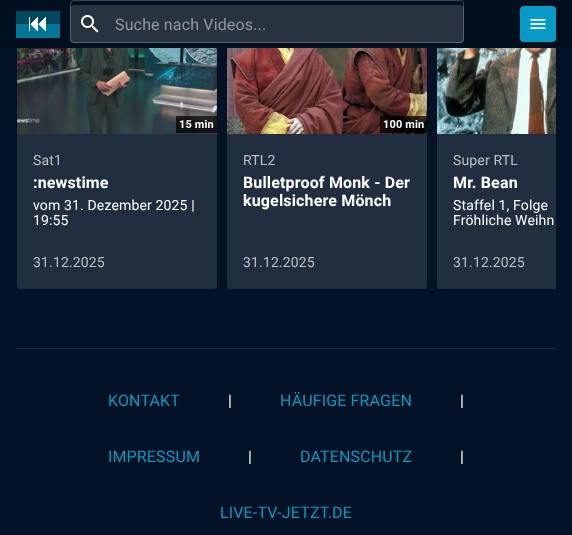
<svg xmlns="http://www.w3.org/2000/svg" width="572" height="535">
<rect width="100%" height="100%" fill="#031224"/>
<rect x="17" y="-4" width="200" height="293" rx="4" fill="#162336"/>
<rect x="227" y="-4" width="200" height="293" rx="4" fill="#162336"/>
<path d="M441-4h115v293h-115c-2 0-4-2-4-4v-285c0-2 2-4 4-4z" fill="#162336"/>
<rect width="572" height="48" fill="#020f1e"/>
<image x="16" y="11" width="44" height="27" href="media/1.png"/>
<rect x="70" y="5" width="394" height="38" rx="4" fill="#283340"/>
<image x="81" y="15" width="18" height="18" href="media/2.png"/>
<rect x="70.5" y="0.5" width="393" height="42" rx="3.5" fill="none" stroke="#ffffff3b"/>
<text x="115" y="30" style="font-family:Roboto;font-size:16px;letter-spacing:0.15px;fill:#9499a0">Suche nach Videos...</text>
<rect x="520" y="6" width="36" height="36" rx="4" fill="#069ac4"/>
<image x="530" y="19" width="16" height="10" href="media/3.png"/>
<rect x="17" y="48" width="200" height="241" fill="#ffffff0d"/>
<image x="17" y="48" width="200" height="86" href="media/4.png"/>
<rect x="176" y="116" width="41" height="17" fill="#000000b3"/>
<text x="179" y="128" style="font-family:Roboto;font-size:11px;font-weight:bold;letter-spacing:0.15px;fill:#fff">15 min</text>
<text x="33" y="165" style="font-family:Roboto;font-size:14px;letter-spacing:0.15px;fill:#bdc0c6">Sat1</text>
<text x="33" y="188" style="font-family:Roboto;font-size:16px;font-weight:bold;letter-spacing:0.15px;fill:#fff">:newstime</text>
<text x="33" y="210" style="font-family:Roboto;font-size:14px;letter-spacing:0.15px;fill:#fff">vom 31. Dezember 2025 |</text>
<text x="33" y="225" style="font-family:Roboto;font-size:14px;letter-spacing:0.15px;fill:#fff">19:55</text>
<text x="33" y="267" style="font-family:Roboto;font-size:14px;letter-spacing:0.15px;fill:#bdc0c6">31.12.2025</text>
<rect x="227" y="134" width="200" height="155" fill="#ffffff0d"/>
<image x="227" y="48" width="200" height="86" href="media/5.png"/>
<rect x="380" y="116" width="47" height="17" fill="#000000b3"/>
<text x="383" y="128" style="font-family:Roboto;font-size:11px;font-weight:bold;letter-spacing:0.15px;fill:#fff">100 min</text>
<text x="243" y="165" style="font-family:Roboto;font-size:14px;letter-spacing:0.15px;fill:#bdc0c6">RTL2</text>
<text x="243" y="188" style="font-family:Roboto;font-size:16px;font-weight:bold;letter-spacing:0.15px;fill:#fff">Bulletproof Monk - Der</text>
<text x="243" y="206" style="font-family:Roboto;font-size:16px;font-weight:bold;letter-spacing:0.15px;fill:#fff">kugelsichere Mönch</text>
<text x="243" y="267" style="font-family:Roboto;font-size:14px;letter-spacing:0.15px;fill:#bdc0c6">31.12.2025</text>
<rect x="437" y="134" width="119" height="155" fill="#ffffff0d"/>
<image x="437" y="48" width="119" height="86" href="media/6.png"/>
<text x="453" y="165" style="font-family:Roboto;font-size:14px;letter-spacing:0.15px;fill:#bdc0c6">Super RTL</text>
<text x="453" y="188" style="font-family:Roboto;font-size:16px;font-weight:bold;letter-spacing:0.15px;fill:#fff">Mr. Bean</text>
<text x="453" y="210" style="font-family:Roboto;font-size:14px;letter-spacing:0.15px;fill:#fff">Staffel 1, Folge</text>
<text x="453" y="225" style="font-family:Roboto;font-size:14px;letter-spacing:0.15px;fill:#fff">Fröhliche Weihn</text>
<text x="453" y="267" style="font-family:Roboto;font-size:14px;letter-spacing:0.15px;fill:#bdc0c6">31.12.2025</text>
<rect x="16" y="348" width="540" height="1" fill="#212e3e"/>
<text x="108" y="406" style="font-family:Roboto;font-size:16px;letter-spacing:0.15px;fill:#069ac4">KONTAKT</text>
<text x="228" y="406" style="font-family:Roboto;font-size:16px;letter-spacing:0.15px;fill:#fff">|</text>
<text x="280" y="406" style="font-family:Roboto;font-size:16px;letter-spacing:0.15px;fill:#069ac4">HÄUFIGE FRAGEN</text>
<text x="460" y="406" style="font-family:Roboto;font-size:16px;letter-spacing:0.15px;fill:#fff">|</text>
<text x="108" y="462" style="font-family:Roboto;font-size:16px;letter-spacing:0.15px;fill:#069ac4">IMPRESSUM</text>
<text x="248" y="462" style="font-family:Roboto;font-size:16px;letter-spacing:0.15px;fill:#fff">|</text>
<text x="300" y="462" style="font-family:Roboto;font-size:16px;letter-spacing:0.15px;fill:#069ac4">DATENSCHUTZ</text>
<text x="460" y="462" style="font-family:Roboto;font-size:16px;letter-spacing:0.15px;fill:#fff">|</text>
<text x="220" y="518" style="font-family:Roboto;font-size:16px;letter-spacing:0.15px;fill:#069ac4">LIVE-TV-JETZT.DE</text>
</svg>
